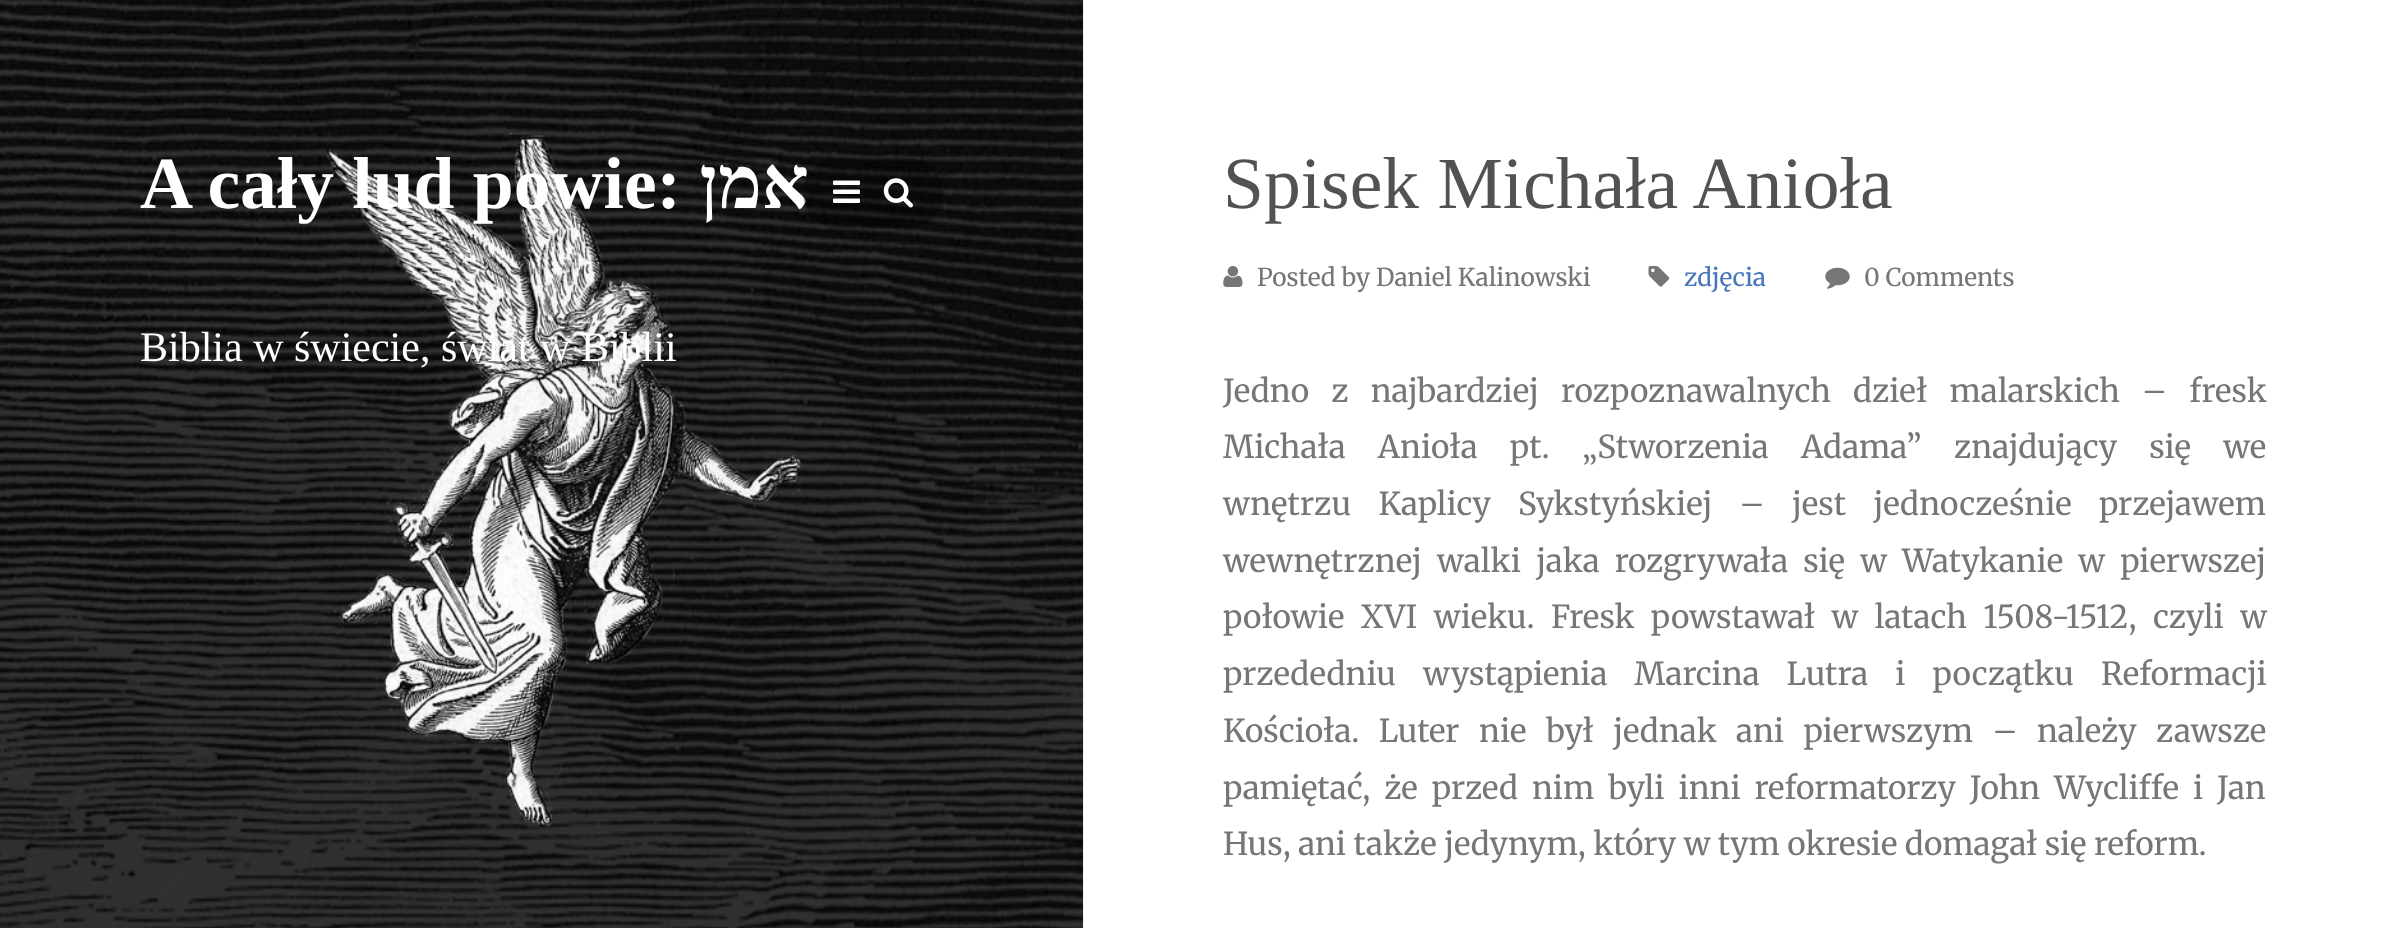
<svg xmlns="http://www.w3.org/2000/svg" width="2405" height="928">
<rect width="100%" height="100%" fill="#fff"/>
<image x="0" y="0" width="1084" height="928" href="media/1.png"/>
<text x="140" y="208" style="font-family:Liberation Serif;font-size:73.5px;font-weight:bold;fill:#fff">A cały lud powie:</text>
<text x="809" y="208" style="font-family:Liberation Serif;font-size:73.5px;font-weight:bold;direction:rtl;fill:#fff">אמן</text>
<rect x="803" y="158" width="140" height="70" rx="35" fill="#0000004d"/>
<image x="833" y="180" width="27" height="23" href="media/2.png"/>
<image x="883" y="178" width="30" height="30" href="media/3.png"/>
<text x="140" y="361" style="font-family:Liberation Serif;font-size:42px;fill:#fff">Biblia w świecie, świat w Biblii</text>
<text x="1223" y="208" style="font-family:Liberation Serif;font-size:73.5px;fill:#525252">Spisek Michała Anioła</text>
<image x="1223" y="266" width="20" height="21" href="media/4.png"/>
<text x="1257" y="286" style="font-family:Merriweather;font-size:24.5px;fill:#767676">Posted by Daniel Kalinowski</text>
<image x="1648" y="266" width="22" height="21" href="media/5.png"/>
<text x="1684" y="286" style="font-family:Merriweather;font-size:24.5px;fill:#4776bb">zdjęcia</text>
<image x="1825" y="267" width="25" height="22" href="media/6.png"/>
<text x="1864" y="286" style="font-family:Merriweather;font-size:24.5px;fill:#767676">0 Comments</text>
<text x="1223" y="402" word-spacing="14.75" style="font-family:Merriweather;font-size:31.5px;fill:#767676">Jedno z najbardziej rozpoznawalnych dzieł malarskich – fresk</text>
<text x="1223" y="458" word-spacing="24.75" style="font-family:Merriweather;font-size:31.5px;fill:#767676">Michała Anioła pt. „Stworzenia Adama” znajdujący się we</text>
<text x="1223" y="515" word-spacing="19.75" style="font-family:Merriweather;font-size:31.5px;fill:#767676">wnętrzu Kaplicy Sykstyńskiej – jest jednocześnie przejawem</text>
<text x="1223" y="572" word-spacing="7.75" style="font-family:Merriweather;font-size:31.5px;fill:#767676">wewnętrznej walki jaka rozgrywała się w Watykanie w pierwszej</text>
<text x="1223" y="628" word-spacing="9" style="font-family:Merriweather;font-size:31.5px;fill:#767676">połowie XVI wieku. Fresk powstawał w latach 1508-1512, czyli w</text>
<text x="1223" y="685" word-spacing="19.5" style="font-family:Merriweather;font-size:31.5px;fill:#767676">przededniu wystąpienia Marcina Lutra i początku Reformacji</text>
<text x="1223" y="742" word-spacing="12" style="font-family:Merriweather;font-size:31.5px;fill:#767676">Kościoła. Luter nie był jednak ani pierwszym – należy zawsze</text>
<text x="1223" y="799" word-spacing="6.5" style="font-family:Merriweather;font-size:31.5px;fill:#767676">pamiętać, że przed nim byli inni reformatorzy John Wycliffe i Jan</text>
<text x="1223" y="855" style="font-family:Merriweather;font-size:31.5px;fill:#767676">Hus, ani także jedynym, który w tym okresie domagał się reform.</text>
</svg>
